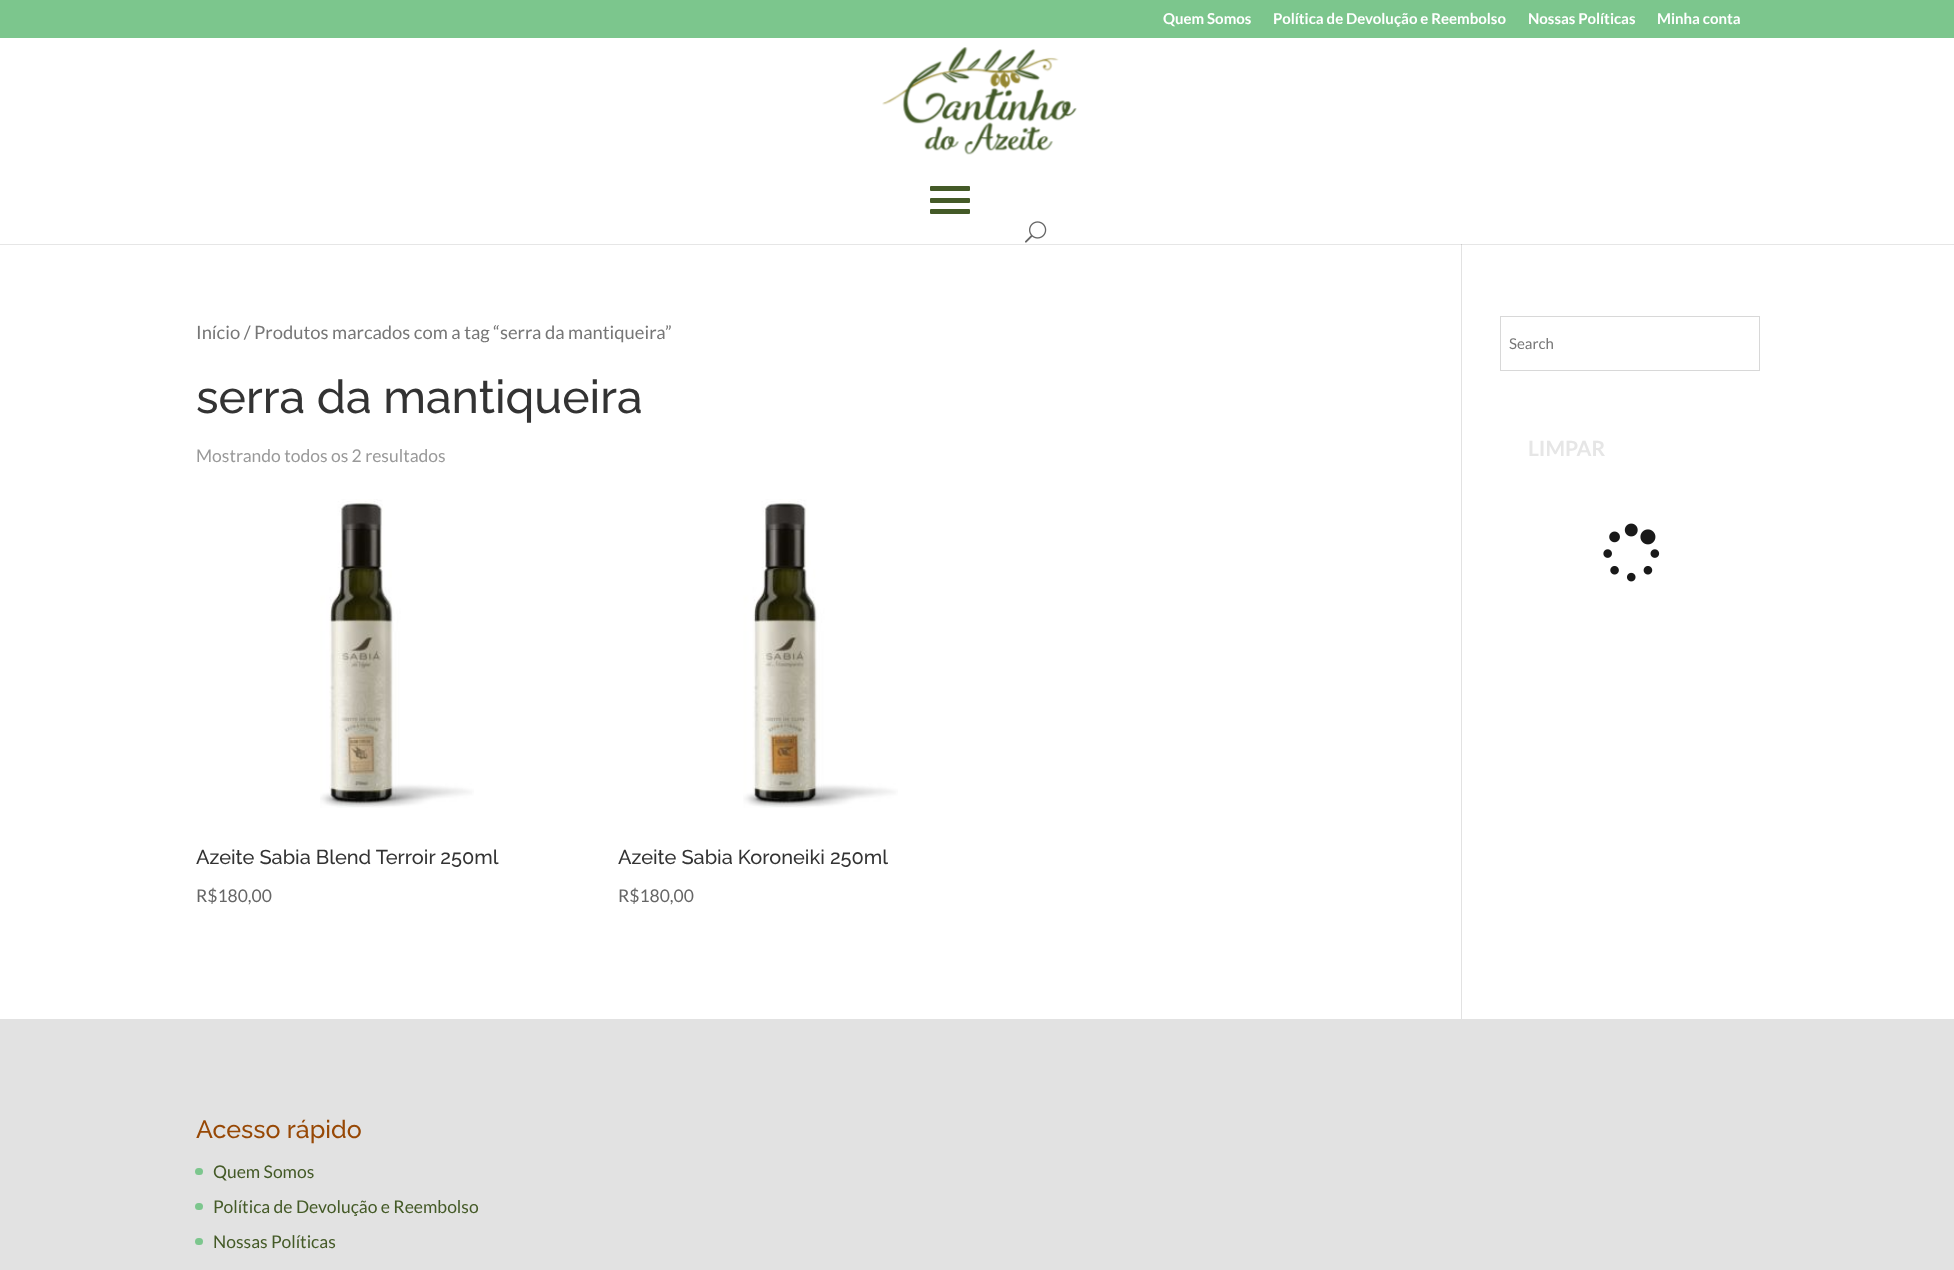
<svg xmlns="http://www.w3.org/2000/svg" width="1954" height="1270">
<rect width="100%" height="100%" fill="#fff"/>
<rect y="244" width="1954" height="1" fill="#e6e6e6"/>
<rect width="1954" height="38" fill="#7cc68d"/>
<text x="1163" y="24" style="font-family:Lato;font-size:15px;font-weight:bold;fill:#fff">Quem Somos</text>
<text x="1273" y="24" style="font-family:Lato;font-size:15px;font-weight:bold;fill:#fff">Política de Devolução e Reembolso</text>
<text x="1528" y="24" style="font-family:Lato;font-size:15px;font-weight:bold;fill:#fff">Nossas Políticas</text>
<text x="1657" y="24" style="font-family:Lato;font-size:15px;font-weight:bold;fill:#fff">Minha conta</text>
<image x="882" y="47" width="195" height="108" href="media/1.png"/>
<rect x="930" y="186" width="40" height="5" rx="1" fill="#445a27"/>
<rect x="930" y="198" width="40" height="5" rx="1" fill="#445a27"/>
<rect x="930" y="209" width="40" height="5" rx="1" fill="#445a27"/>
<image x="1025" y="221" width="22" height="22" href="media/2.png"/>
<rect x="1461" y="244" width="1" height="775" fill="#e2e2e2"/>
<rect x="1461" y="244" width="1" height="1" fill="#cbcbcb"/>
<text x="196" y="339" style="font-family:Lato;font-size:18.4px;fill:#767676">Início / Produtos marcados com a tag “serra da mantiqueira”</text>
<text x="196" y="413" style="font-family:Raleway;font-size:46.25px;font-weight:100;fill:#333">serra da mantiqueira</text>
<text x="196" y="462" style="font-family:Lato;font-size:17.5px;fill:#999">Mostrando todos os 2 resultados</text>
<image x="320" y="499" width="154" height="309" href="media/3.png"/>
<text x="196" y="864" style="font-family:Raleway;font-size:20px;font-weight:100;fill:#333">Azeite Sabia Blend Terroir 250ml</text>
<text x="196" y="902" style="font-family:Lato;font-size:17.5px;fill:#666">R$180,00</text>
<image x="743" y="499" width="155" height="309" href="media/4.png"/>
<text x="618" y="864" style="font-family:Raleway;font-size:20px;font-weight:100;fill:#333">Azeite Sabia Koroneiki 250ml</text>
<text x="618" y="902" style="font-family:Lato;font-size:17.5px;fill:#666">R$180,00</text>
<rect x="1500.5" y="316.5" width="259" height="54" fill="none" stroke="#d8d8d8"/>
<text x="1509" y="349" style="font-family:Lato;font-size:15px;fill:#767676">Search</text>
<text x="1528" y="456" style="font-family:Lato;font-size:21px;font-weight:bold;fill:#e6e6e6">LIMPAR</text>
<image x="1603" y="523" width="57" height="59" href="media/5.png"/>
<rect y="1019" width="1954" height="251" fill="#e2e2e2"/>
<text x="196" y="1138" style="font-family:Raleway;font-size:25px;font-weight:100;fill:#974805">Acesso rápido</text>
<rect x="195" y="1168" width="8" height="7" rx="3.5" fill="#7cc68d"/>
<text x="213" y="1178" style="font-family:Lato;font-size:17.5px;fill:#445a27">Quem Somos</text>
<rect x="195" y="1203" width="8" height="7" rx="3.5" fill="#7cc68d"/>
<text x="213" y="1213" style="font-family:Lato;font-size:17.5px;fill:#445a27">Política de Devolução e Reembolso</text>
<rect x="195" y="1238" width="8" height="7" rx="3.5" fill="#7cc68d"/>
<text x="213" y="1248" style="font-family:Lato;font-size:17.5px;fill:#445a27">Nossas Políticas</text>
</svg>
